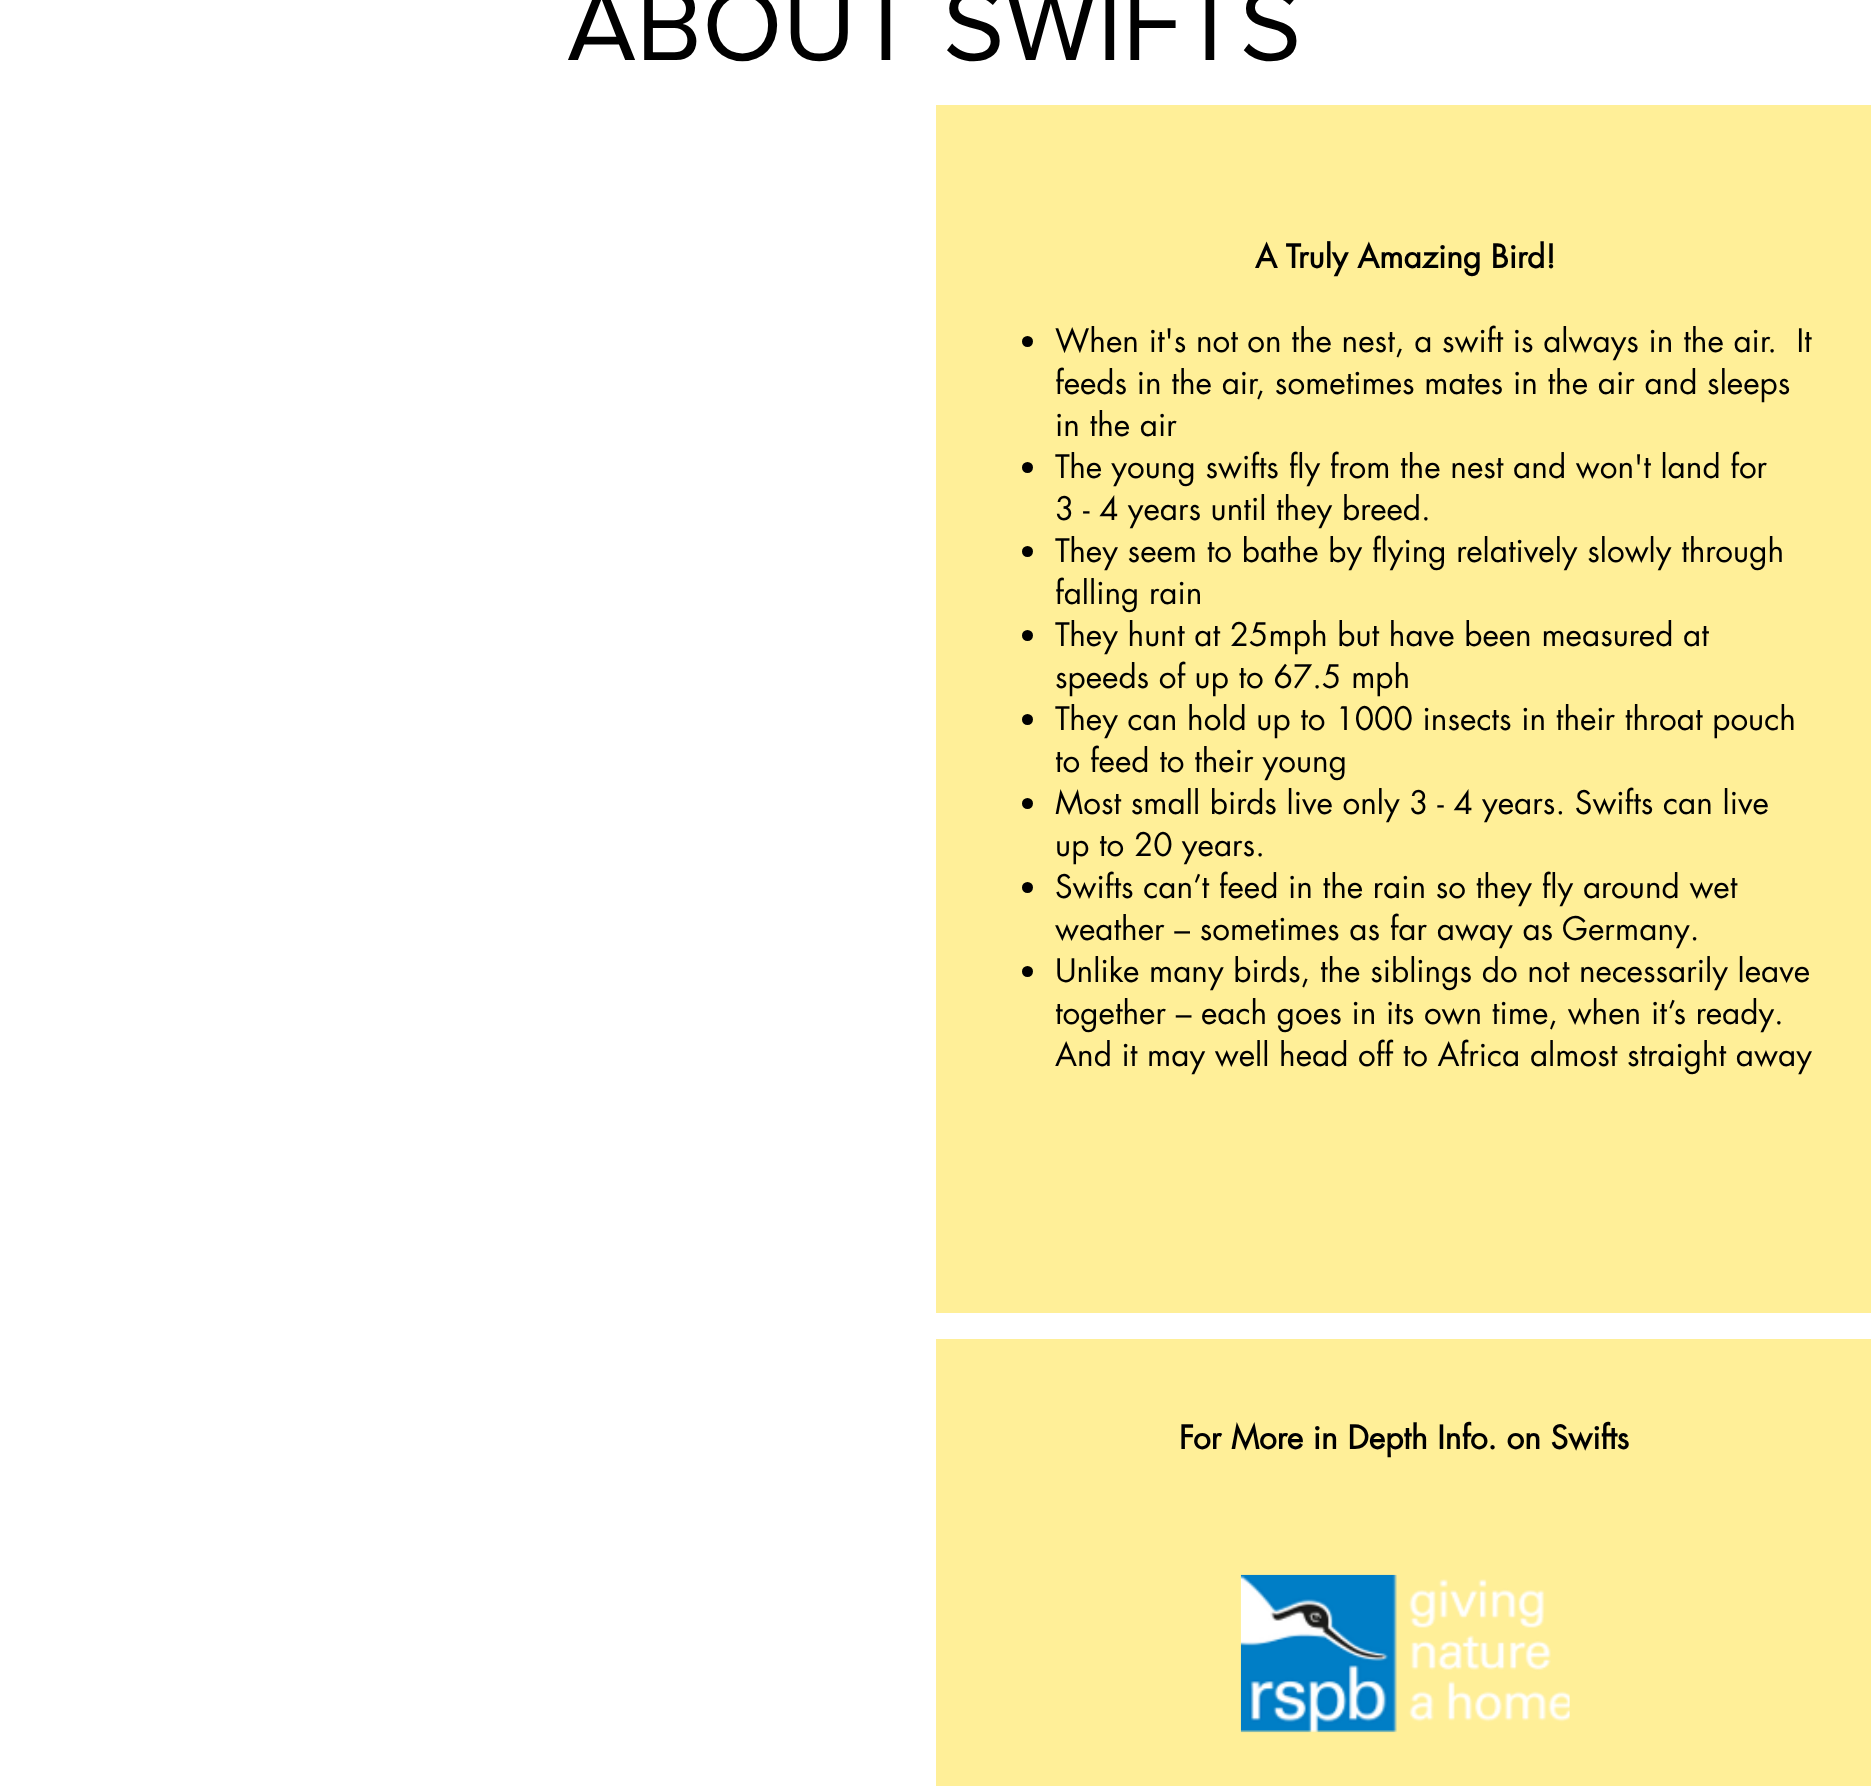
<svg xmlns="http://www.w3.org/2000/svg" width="1871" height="1786">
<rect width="100%" height="100%" fill="#fff"/>
<text x="567" y="60" style="font-family:'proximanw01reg';font-size:105px;fill:#000">ABOUT SWIFTS</text>
<rect x="936" y="105" width="935" height="1208" fill="#ffef98"/>
<text x="1255" y="268" style="font-family:futura;font-size:31.5px;font-weight:bold;fill:#000">A Truly Amazing Bird!</text>
<circle cx="1027.5" cy="341.5" r="5.5" fill="#000"/>
<text x="1055" y="352" style="font-family:futura;font-size:31.5px;fill:#000" xml:space="preserve">When it's not on the nest, a swift is always in the air.  It</text>
<text x="1055" y="394" style="font-family:futura;font-size:31.5px;fill:#000">feeds in the air, sometimes mates in the air and sleeps</text>
<text x="1055" y="436" style="font-family:futura;font-size:31.5px;fill:#000">in the air</text>
<circle cx="1027.5" cy="467.5" r="5.5" fill="#000"/>
<text x="1055" y="478" style="font-family:futura;font-size:31.5px;fill:#000">The young swifts fly from the nest and won't land for</text>
<text x="1055" y="520" style="font-family:futura;font-size:31.5px;fill:#000">3 - 4 years until they breed.</text>
<circle cx="1027.5" cy="551.5" r="5.5" fill="#000"/>
<text x="1055" y="562" style="font-family:futura;font-size:31.5px;fill:#000">They seem to bathe by flying relatively slowly through</text>
<text x="1055" y="604" style="font-family:futura;font-size:31.5px;fill:#000">falling rain</text>
<circle cx="1027.5" cy="635.5" r="5.5" fill="#000"/>
<text x="1055" y="646" style="font-family:futura;font-size:31.5px;fill:#000">They hunt at 25mph but have been measured at</text>
<text x="1055" y="688" style="font-family:futura;font-size:31.5px;fill:#000">speeds of up to 67.5 mph</text>
<circle cx="1027.5" cy="719.5" r="5.5" fill="#000"/>
<text x="1055" y="730" style="font-family:futura;font-size:31.5px;fill:#000">They can hold up to 1000 insects in their throat pouch</text>
<text x="1055" y="772" style="font-family:futura;font-size:31.5px;fill:#000">to feed to their young</text>
<circle cx="1027.5" cy="803.5" r="5.5" fill="#000"/>
<text x="1055" y="814" style="font-family:futura;font-size:31.5px;fill:#000">Most small birds live only 3 - 4 years. Swifts can live</text>
<text x="1055" y="856" style="font-family:futura;font-size:31.5px;fill:#000">up to 20 years.</text>
<circle cx="1027.5" cy="887.5" r="5.5" fill="#000"/>
<text x="1055" y="898" style="font-family:futura;font-size:31.5px;fill:#000">Swifts can’t feed in the rain so they fly around wet</text>
<text x="1055" y="940" style="font-family:futura;font-size:31.5px;fill:#000">weather – sometimes as far away as Germany.</text>
<circle cx="1027.5" cy="971.5" r="5.5" fill="#000"/>
<text x="1055" y="982" style="font-family:futura;font-size:31.5px;fill:#000">Unlike many birds, the siblings do not necessarily leave</text>
<text x="1055" y="1024" style="font-family:futura;font-size:31.5px;fill:#000">together – each goes in its own time, when it’s ready.</text>
<text x="1055" y="1066" style="font-family:futura;font-size:31.5px;fill:#000">And it may well head off to Africa almost straight away</text>
<rect x="936" y="1339" width="935" height="447" fill="#ffef98"/>
<text x="1179" y="1449" style="font-family:futura;font-size:31.5px;font-weight:bold;fill:#000">For More in Depth Info. on Swifts</text>
<image x="1240" y="1574" width="330" height="159" href="media/1.png"/>
</svg>
